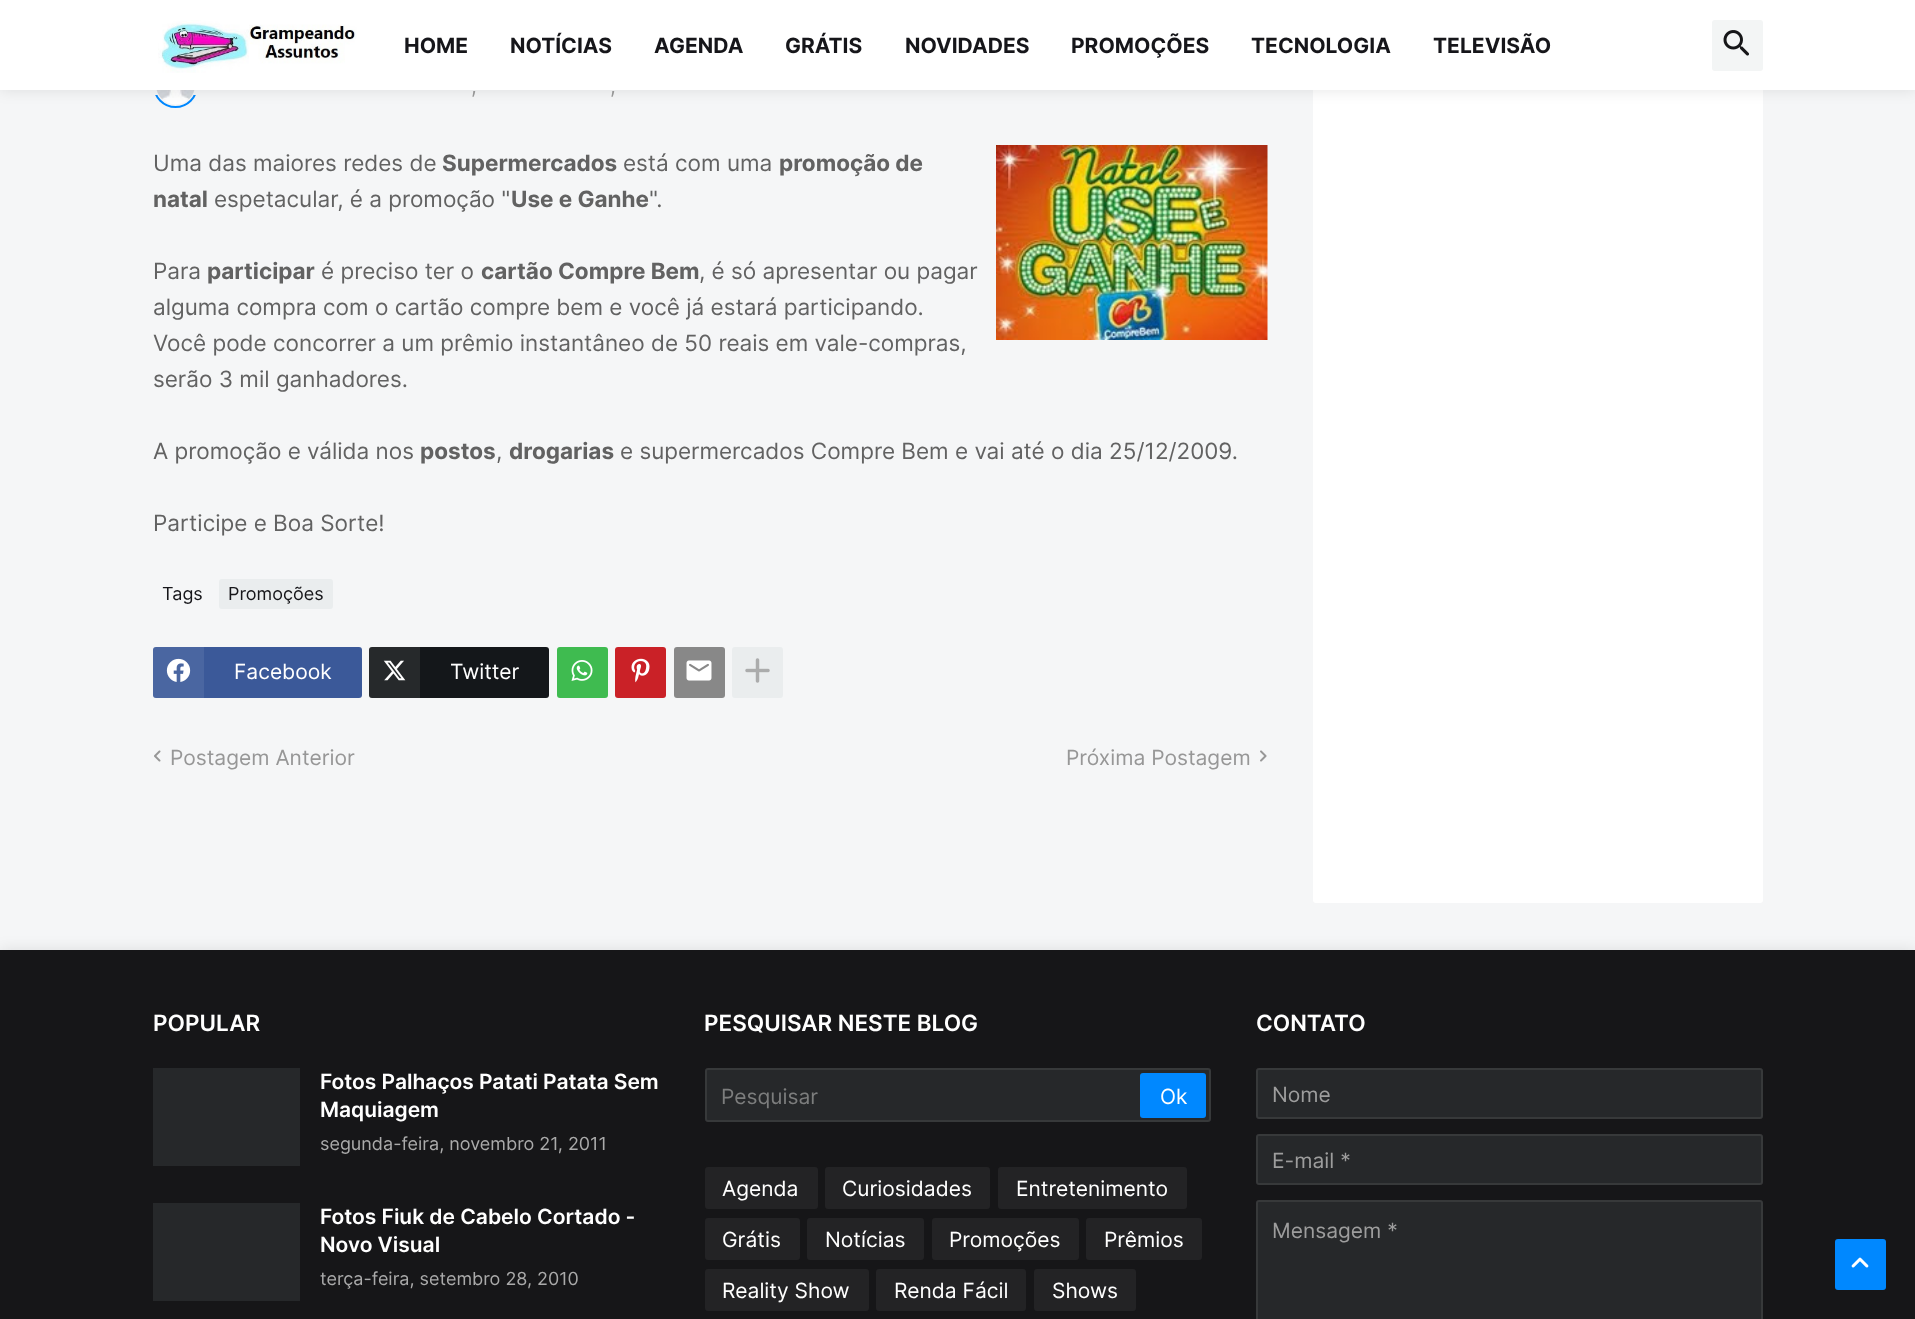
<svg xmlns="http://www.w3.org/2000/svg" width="1915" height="1319">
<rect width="100%" height="100%" fill="#f5f6f7"/>
<circle cx="175.5" cy="85.5" r="21.5" fill="none" stroke="#08f" stroke-width="2"/>
<rect x="153" y="90" width="45" height="5" fill="#f5f6f7"/>
<image x="156" y="90" width="39" height="15" href="media/3.png"/>
<rect x="1313" y="-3" width="450" height="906" rx="3" fill="#fff"/>
<rect width="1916" height="90" fill="#0000001a" filter="blur(7.5px)"/>
<rect width="1915" height="90" fill="#fff"/>
<image x="158" y="20" width="199" height="53" href="media/1.png"/>
<text x="404" y="53" style="font-family:Inter;font-size:21px;font-weight:bold;fill:#16161a">HOME</text>
<text x="510" y="53" style="font-family:Inter;font-size:21px;font-weight:bold;fill:#16161a">NOTÍCIAS</text>
<text x="654" y="53" style="font-family:Inter;font-size:21px;font-weight:bold;fill:#16161a">AGENDA</text>
<text x="785" y="53" style="font-family:Inter;font-size:21px;font-weight:bold;fill:#16161a">GRÁTIS</text>
<text x="905" y="53" style="font-family:Inter;font-size:21px;font-weight:bold;fill:#16161a">NOVIDADES</text>
<text x="1071" y="53" style="font-family:Inter;font-size:21px;font-weight:bold;fill:#16161a">PROMOÇÕES</text>
<text x="1251" y="53" style="font-family:Inter;font-size:21px;font-weight:bold;fill:#16161a">TECNOLOGIA</text>
<text x="1433" y="53" style="font-family:Inter;font-size:21px;font-weight:bold;fill:#16161a">TELEVISÃO</text>
<rect x="1712" y="20" width="51" height="51" rx="3" fill="#f3f5f5"/>
<image x="1723" y="30" width="26" height="26" href="media/2.png"/>
<text x="471" y="93" style="font-family:Inter;font-size:21px;fill:#979797">,</text>
<text x="610" y="93" style="font-family:Inter;font-size:21px;fill:#979797">,</text>
<text x="153" y="171" style="font-family:Inter;font-size:22.5px;fill:#626262">Uma das maiores redes de</text>
<text x="442" y="171" style="font-family:Inter;font-size:22.5px;font-weight:bold;fill:#626262">Supermercados</text>
<text x="623" y="171" style="font-family:Inter;font-size:22.5px;fill:#626262">está com uma</text>
<text x="779" y="171" style="font-family:Inter;font-size:22.5px;font-weight:bold;fill:#626262">promoção de</text>
<image x="996" y="145" width="272" height="195" href="media/4.png"/>
<text x="153" y="207" style="font-family:Inter;font-size:22.5px;font-weight:bold;fill:#626262">natal</text>
<text x="214" y="207" style="font-family:Inter;font-size:22.5px;fill:#626262">espetacular, é a promoção "</text>
<text x="511" y="207" style="font-family:Inter;font-size:22.5px;font-weight:bold;fill:#626262">Use e Ganhe</text>
<text x="649" y="207" style="font-family:Inter;font-size:22.5px;fill:#626262">".</text>
<text x="153" y="279" style="font-family:Inter;font-size:22.5px;fill:#626262">Para</text>
<text x="207" y="279" style="font-family:Inter;font-size:22.5px;font-weight:bold;fill:#626262">participar</text>
<text x="321" y="279" style="font-family:Inter;font-size:22.5px;fill:#626262">é preciso ter o</text>
<text x="481" y="279" style="font-family:Inter;font-size:22.5px;font-weight:bold;fill:#626262">cartão Compre Bem</text>
<text x="699" y="279" style="font-family:Inter;font-size:22.5px;fill:#626262">, é só apresentar ou pagar</text>
<text x="153" y="315" style="font-family:Inter;font-size:22.5px;fill:#626262">alguma compra com o cartão compre bem e você já estará participando.</text>
<text x="153" y="351" style="font-family:Inter;font-size:22.5px;fill:#626262">Você pode concorrer a um prêmio instantâneo de 50 reais em vale-compras,</text>
<text x="153" y="387" style="font-family:Inter;font-size:22.5px;fill:#626262">serão 3 mil ganhadores.</text>
<text x="153" y="459" style="font-family:Inter;font-size:22.5px;fill:#626262">A promoção e válida nos</text>
<text x="420" y="459" style="font-family:Inter;font-size:22.5px;font-weight:bold;fill:#626262">postos</text>
<text x="496" y="459" style="font-family:Inter;font-size:22.5px;fill:#626262">,</text>
<text x="509" y="459" style="font-family:Inter;font-size:22.5px;font-weight:bold;fill:#626262">drogarias</text>
<text x="620" y="459" style="font-family:Inter;font-size:22.5px;fill:#626262">e supermercados Compre Bem e vai até o dia 25/12/2009.</text>
<text x="153" y="531" style="font-family:Inter;font-size:22.5px;fill:#626262">Participe e Boa Sorte!</text>
<text x="162" y="600" style="font-family:Inter;font-size:18px;fill:#16161a">Tags</text>
<rect x="219" y="579" width="114" height="30" rx="3" fill="#eaedee"/>
<text x="228" y="600" style="font-family:Inter;font-size:18px;fill:#16161a">Promoções</text>
<rect x="153" y="647" width="209" height="51" rx="3" fill="#3b5999"/>
<path d="M156 647h48v51h-48c-1.5 0-3-1.5-3-3v-45c0-1.5 1.5-3 3-3z" fill="#ffffff14"/>
<image x="166" y="658" width="25" height="24" href="media/5.png"/>
<text x="234" y="679" style="font-family:Inter;font-size:21px;fill:#fff">Facebook</text>
<rect x="369" y="647" width="180" height="51" rx="3" fill="#14171a"/>
<path d="M372 647h48v51h-48c-1.5 0-3-1.5-3-3v-45c0-1.5 1.5-3 3-3z" fill="#ffffff14"/>
<image x="383" y="660" width="23" height="21" href="media/6.png"/>
<text x="450" y="679" style="font-family:Inter;font-size:21px;fill:#fff">Twitter</text>
<rect x="557" y="647" width="51" height="51" rx="3" fill="#3fbb50"/>
<image x="571" y="660" width="22" height="21" href="media/7.png"/>
<rect x="615" y="647" width="51" height="51" rx="3" fill="#ca2127"/>
<image x="631" y="658" width="19" height="25" href="media/8.png"/>
<rect x="674" y="647" width="51" height="51" rx="3" fill="#888"/>
<image x="686" y="660" width="26" height="21" href="media/9.png"/>
<rect x="732" y="647" width="51" height="51" rx="3" fill="#eaedee"/>
<image x="745" y="658" width="25" height="25" href="media/10.png"/>
<image x="154" y="750" width="7" height="12" href="media/11.png"/>
<text x="170" y="765" style="font-family:Inter;font-size:21px;fill:#979797">Postagem Anterior</text>
<text x="1066" y="765" style="font-family:Inter;font-size:21px;fill:#979797">Próxima Postagem</text>
<image x="1260" y="750" width="7" height="12" href="media/12.png"/>
<rect y="950" width="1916" height="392" fill="#0000001a" filter="blur(7.5px)"/>
<rect y="950" width="1915" height="369" fill="#161618"/>
<text x="153" y="1031" style="font-family:Inter;font-size:22.5px;font-weight:600;fill:#fff">POPULAR</text>
<rect x="153" y="1068" width="147" height="98" fill="#26282a"/>
<text x="320" y="1089" style="font-family:Inter;font-size:21px;font-weight:600;fill:#fff">Fotos Palhaços Patati Patata Sem</text>
<text x="320" y="1117" style="font-family:Inter;font-size:21px;font-weight:600;fill:#fff">Maquiagem</text>
<text x="320" y="1150" style="font-family:Inter;font-size:18px;fill:#aaa">segunda-feira, novembro 21, 2011</text>
<rect x="153" y="1203" width="147" height="98" fill="#26282a"/>
<text x="320" y="1224" style="font-family:Inter;font-size:21px;font-weight:600;fill:#fff">Fotos Fiuk de Cabelo Cortado -</text>
<text x="320" y="1252" style="font-family:Inter;font-size:21px;font-weight:600;fill:#fff">Novo Visual</text>
<text x="320" y="1285" style="font-family:Inter;font-size:18px;fill:#aaa">terça-feira, setembro 28, 2010</text>
<text x="704" y="1031" style="font-family:Inter;font-size:22.5px;font-weight:600;fill:#fff">PESQUISAR NESTE BLOG</text>
<rect x="705" y="1068" width="506" height="54" rx="3" fill="#26282a"/>
<rect x="706" y="1069" width="504" height="52" rx="2" fill="none" stroke="#9b9b9b26" stroke-width="2"/>
<text x="721" y="1104" style="font-family:Inter;font-size:21px;fill:#7c7d7d">Pesquisar</text>
<rect x="1140" y="1073" width="66" height="45" rx="3" fill="#08f"/>
<text x="1160" y="1104" style="font-family:Inter;font-size:21px;fill:#fff">Ok</text>
<rect x="705" y="1167" width="113" height="42" rx="3" fill="#232325"/>
<text x="722" y="1196" style="font-family:Inter;font-size:21px;fill:#fff">Agenda</text>
<rect x="825" y="1167" width="165" height="42" rx="3" fill="#232325"/>
<text x="842" y="1196" style="font-family:Inter;font-size:21px;fill:#fff">Curiosidades</text>
<rect x="998" y="1167" width="189" height="42" rx="3" fill="#232325"/>
<text x="1016" y="1196" style="font-family:Inter;font-size:21px;fill:#fff">Entretenimento</text>
<rect x="705" y="1218" width="95" height="42" rx="3" fill="#232325"/>
<text x="722" y="1247" style="font-family:Inter;font-size:21px;fill:#fff">Grátis</text>
<rect x="807" y="1218" width="117" height="42" rx="3" fill="#232325"/>
<text x="825" y="1247" style="font-family:Inter;font-size:21px;fill:#fff">Notícias</text>
<rect x="932" y="1218" width="147" height="42" rx="3" fill="#232325"/>
<text x="949" y="1247" style="font-family:Inter;font-size:21px;fill:#fff">Promoções</text>
<rect x="1086" y="1218" width="116" height="42" rx="3" fill="#232325"/>
<text x="1104" y="1247" style="font-family:Inter;font-size:21px;fill:#fff">Prêmios</text>
<rect x="705" y="1269" width="164" height="42" rx="3" fill="#232325"/>
<text x="722" y="1298" style="font-family:Inter;font-size:21px;fill:#fff">Reality Show</text>
<rect x="876" y="1269" width="150" height="42" rx="3" fill="#232325"/>
<text x="894" y="1298" style="font-family:Inter;font-size:21px;fill:#fff">Renda Fácil</text>
<rect x="1034" y="1269" width="102" height="42" rx="3" fill="#232325"/>
<text x="1052" y="1298" style="font-family:Inter;font-size:21px;fill:#fff">Shows</text>
<text x="1256" y="1031" style="font-family:Inter;font-size:22.5px;font-weight:600;fill:#fff">CONTATO</text>
<rect x="1256" y="1068" width="507" height="51" rx="3" fill="#26282a"/>
<rect x="1257" y="1069" width="505" height="49" rx="2" fill="none" stroke="#9b9b9b26" stroke-width="2"/>
<text x="1272" y="1102" style="font-family:Inter;font-size:21px;fill:#9d9d9d">Nome</text>
<rect x="1256" y="1134" width="507" height="51" rx="3" fill="#26282a"/>
<rect x="1257" y="1135" width="505" height="49" rx="2" fill="none" stroke="#9b9b9b26" stroke-width="2"/>
<text x="1272" y="1168" style="font-family:Inter;font-size:21px;fill:#9d9d9d">E-mail *</text>
<rect x="1256" y="1200" width="507" height="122" rx="3" fill="#26282a"/>
<rect x="1257" y="1201" width="505" height="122" rx="2" fill="none" stroke="#9b9b9b26" stroke-width="2"/>
<text x="1272" y="1238" style="font-family:Inter;font-size:21px;fill:#9d9d9d">Mensagem *</text>
<rect x="1835" y="1239" width="51" height="51" rx="3" fill="#08f"/>
<image x="1851" y="1257" width="18" height="11" href="media/13.png"/>
</svg>
